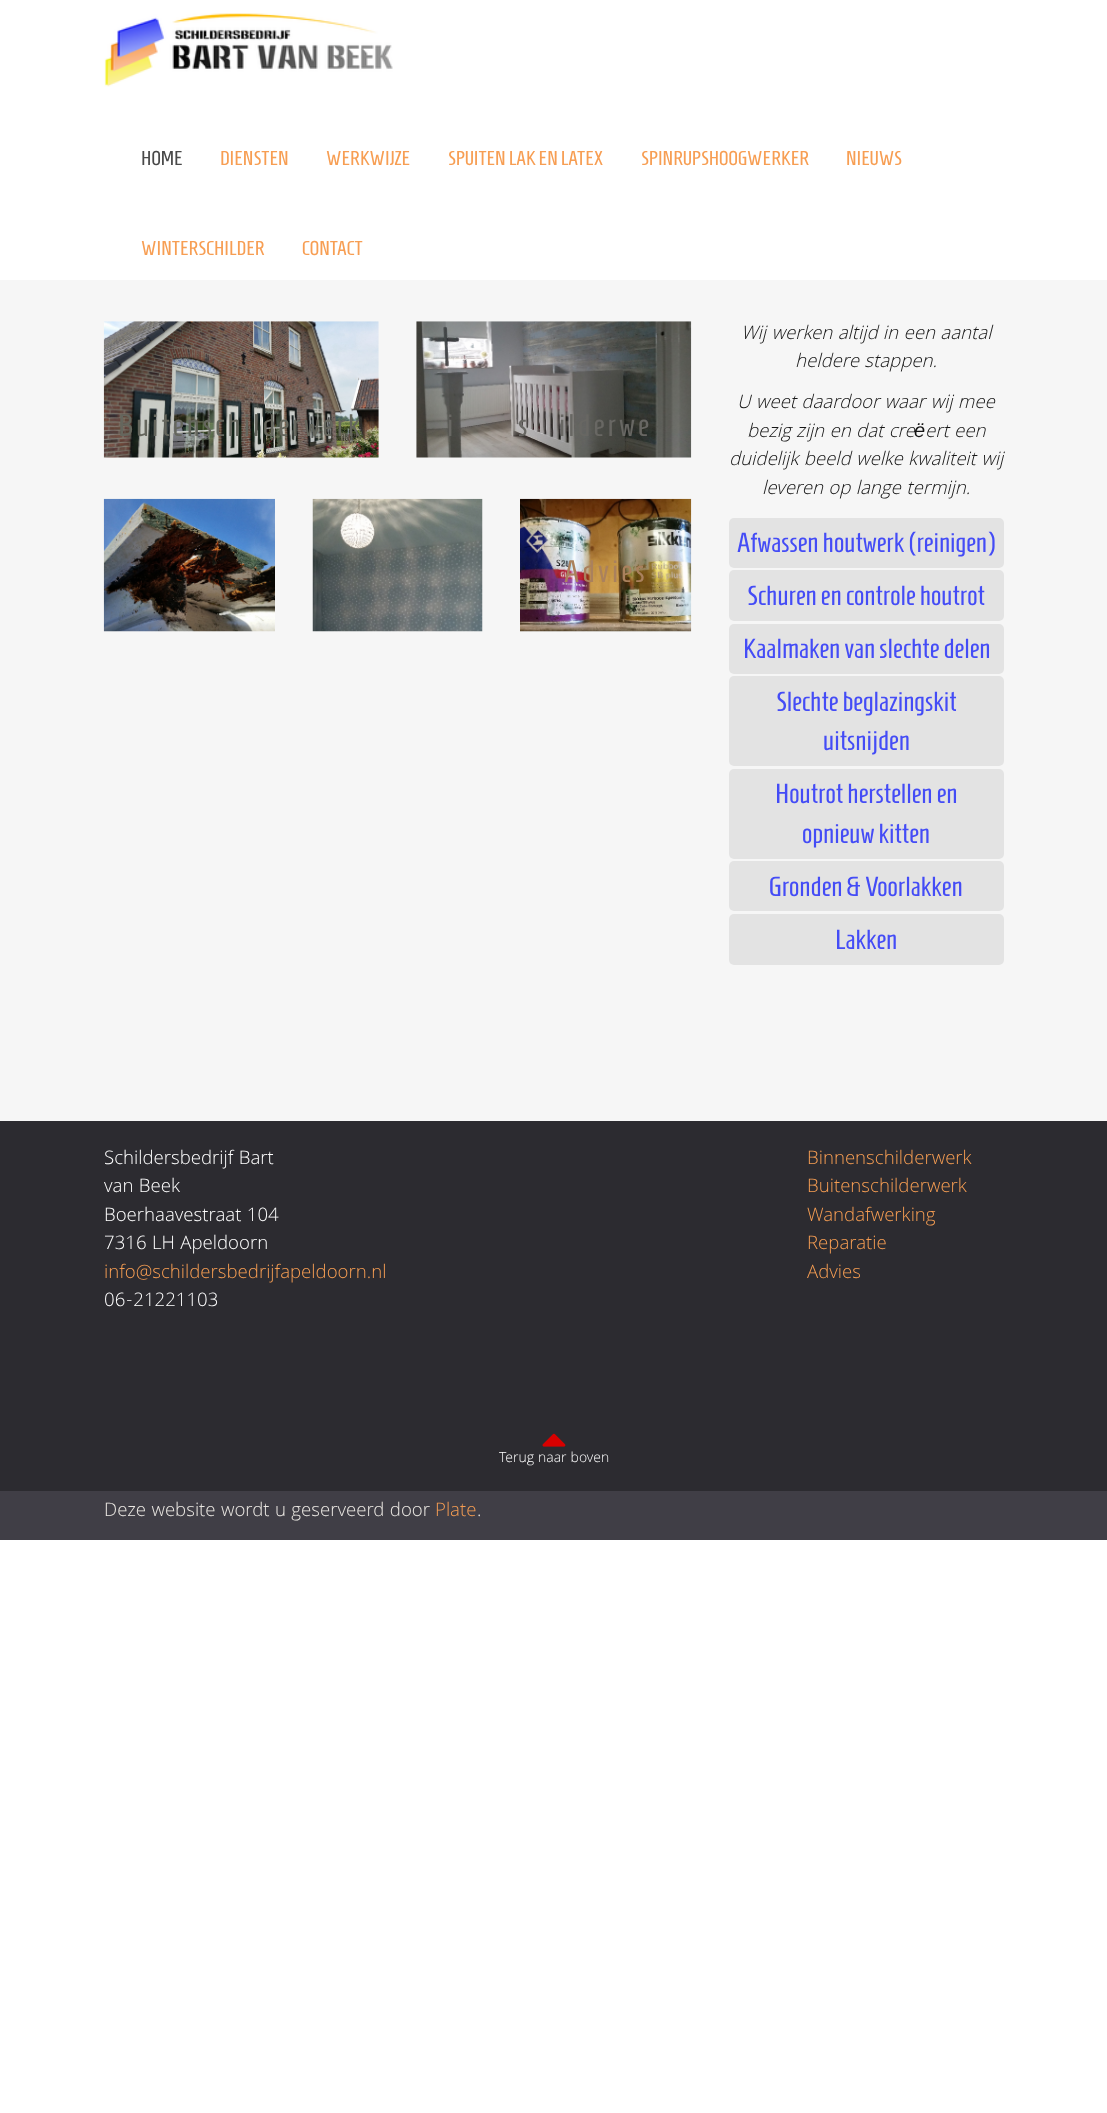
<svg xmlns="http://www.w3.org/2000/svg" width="1107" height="2113">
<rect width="100%" height="100%" fill="#fff"/>
<image x="104" y="13" width="289" height="74" href="media/1.png"/>
<text x="141" y="165" style="font-family:Homenaje;font-size:20px;fill:#494949">HOME</text>
<text x="220" y="165" style="font-family:Homenaje;font-size:20px;fill:#f79e53">DIENSTEN</text>
<text x="326" y="165" style="font-family:Homenaje;font-size:20px;fill:#f79e53">WERKWIJZE</text>
<text x="448" y="165" style="font-family:Homenaje;font-size:20px;fill:#f79e53">SPUITEN LAK EN LATEX</text>
<text x="641" y="165" style="font-family:Homenaje;font-size:20px;fill:#f79e53">SPINRUPSHOOGWERKER</text>
<text x="846" y="165" style="font-family:Homenaje;font-size:20px;fill:#f79e53">NIEUWS</text>
<text x="141" y="255" style="font-family:Homenaje;font-size:20px;fill:#f79e53">WINTERSCHILDER</text>
<text x="302" y="255" style="font-family:Homenaje;font-size:20px;fill:#f79e53">CONTACT</text>
<rect y="280" width="1107" height="841" fill="#f6f6f6"/>
<image x="103" y="321" width="276" height="137" href="media/2.png"/>
<text x="118" y="436" style="font-family:Homenaje;font-size:31.25px;letter-spacing:3.1px;fill:#65665d">Buitenschilderwerk</text>
<image x="416" y="321" width="276" height="137" href="media/3.png"/>
<text x="447" y="436" style="font-family:Homenaje;font-size:31.25px;letter-spacing:3.1px;fill:#686763">i</text>
<text x="518" y="436" style="font-family:Homenaje;font-size:31.25px;letter-spacing:3.1px;fill:#686763">s</text>
<text x="559" y="436" style="font-family:Homenaje;font-size:31.25px;letter-spacing:3.1px;fill:#686763">ilderwe</text>
<image x="103" y="498" width="172" height="134" href="media/4.png"/>
<image x="312" y="498" width="171" height="134" href="media/5.png"/>
<image x="520" y="498" width="172" height="134" href="media/6.png"/>
<text x="564" y="582" style="font-family:Homenaje;font-size:31.25px;letter-spacing:3.1px;fill:#aa815d">Advies</text>
<text x="741" y="339" style="font-family:Khula;font-size:20px;font-weight:300;font-style:italic;fill:#151515">Wij werken altijd in een aantal</text>
<text x="795" y="367" style="font-family:Khula;font-size:20px;font-weight:300;font-style:italic;fill:#151515">heldere stappen.</text>
<text x="737" y="408" style="font-family:Khula;font-size:20px;font-weight:300;font-style:italic;fill:#151515">U weet daardoor waar wij mee</text>
<text x="747" y="437" style="font-family:Khula;font-size:20px;font-weight:300;font-style:italic;fill:#151515">bezig zijn en dat cre</text>
<text x="914" y="437" style="font-family:Liberation Sans;font-size:20px;font-style:italic;fill:#151515">ë</text>
<text x="925" y="437" style="font-family:Khula;font-size:20px;font-weight:300;font-style:italic;fill:#151515">ert een</text>
<text x="729" y="465" style="font-family:Khula;font-size:20px;font-weight:300;font-style:italic;fill:#151515">duidelijk beeld welke kwaliteit wij</text>
<text x="762" y="494" style="font-family:Khula;font-size:20px;font-weight:300;font-style:italic;fill:#151515">leveren op lange termijn.</text>
<rect x="729" y="518" width="275" height="50" rx="5" fill="#e3e3e3"/>
<text x="737" y="552" style="font-family:Homenaje;font-size:27.5px;fill:#444cf6">Afwassen houtwerk (reinigen)</text>
<rect x="729" y="570" width="275" height="51" rx="5" fill="#e3e3e3"/>
<text x="747" y="605" style="font-family:Homenaje;font-size:27.5px;fill:#444cf6">Schuren en controle houtrot</text>
<rect x="729" y="624" width="275" height="50" rx="5" fill="#e3e3e3"/>
<text x="743" y="658" style="font-family:Homenaje;font-size:27.5px;fill:#444cf6">Kaalmaken van slechte delen</text>
<rect x="729" y="676" width="275" height="90" rx="5" fill="#e3e3e3"/>
<text x="776" y="711" style="font-family:Homenaje;font-size:27.5px;fill:#444cf6">Slechte beglazingskit</text>
<text x="823" y="750" style="font-family:Homenaje;font-size:27.5px;fill:#444cf6">uitsnijden</text>
<rect x="729" y="769" width="275" height="90" rx="5" fill="#e3e3e3"/>
<text x="775" y="803" style="font-family:Homenaje;font-size:27.5px;fill:#444cf6">Houtrot herstellen en</text>
<text x="802" y="843" style="font-family:Homenaje;font-size:27.5px;fill:#444cf6">opnieuw kitten</text>
<rect x="729" y="861" width="275" height="50" rx="5" fill="#e3e3e3"/>
<text x="769" y="896" style="font-family:Homenaje;font-size:27.5px;fill:#444cf6">Gronden &amp; Voorlakken</text>
<rect x="729" y="914" width="275" height="51" rx="5" fill="#e3e3e3"/>
<text x="835" y="949" style="font-family:Homenaje;font-size:27.5px;fill:#444cf6">Lakken</text>
<rect y="1121" width="1107" height="370" fill="#2c2b30"/>
<text x="104" y="1164" style="font-family:Khula;font-size:20px;font-weight:300;fill:#fff">Schildersbedrijf Bart</text>
<text x="104" y="1192" style="font-family:Khula;font-size:20px;font-weight:300;fill:#fff">van Beek</text>
<text x="104" y="1221" style="font-family:Khula;font-size:20px;font-weight:300;fill:#fff">Boerhaavestraat 104</text>
<text x="104" y="1249" style="font-family:Khula;font-size:20px;font-weight:300;fill:#fff">7316 LH Apeldoorn</text>
<text x="104" y="1278" style="font-family:Khula;font-size:20px;font-weight:300;fill:#f79e53">info@schildersbedrijfapeldoorn.nl</text>
<text x="104" y="1306" style="font-family:Khula;font-size:20px;font-weight:300;fill:#fff">06-21221103</text>
<text x="807" y="1164" style="font-family:Khula;font-size:20px;font-weight:300;fill:#f79e53">Binnenschilderwerk</text>
<text x="807" y="1192" style="font-family:Khula;font-size:20px;font-weight:300;fill:#f79e53">Buitenschilderwerk</text>
<text x="807" y="1221" style="font-family:Khula;font-size:20px;font-weight:300;fill:#f79e53">Wandafwerking</text>
<text x="807" y="1249" style="font-family:Khula;font-size:20px;font-weight:300;fill:#f79e53">Reparatie</text>
<text x="807" y="1278" style="font-family:Khula;font-size:20px;font-weight:300;fill:#f79e53">Advies</text>
<image x="542" y="1433" width="24" height="14" href="media/7.png"/>
<text x="499" y="1462" style="font-family:Khula;font-size:15px;font-weight:300;fill:#fff">Terug naar boven</text>
<rect y="1491" width="1107" height="49" fill="#403e46"/>
<text x="104" y="1516" style="font-family:Khula;font-size:20px;font-weight:300;fill:#ebe8e3">Deze website wordt u geserveerd door</text>
<text x="435" y="1516" style="font-family:Khula;font-size:20px;font-weight:300;fill:#f79e53">Plate</text>
<text x="477" y="1516" style="font-family:Khula;font-size:20px;font-weight:300;fill:#ebe8e3">.</text>
</svg>
